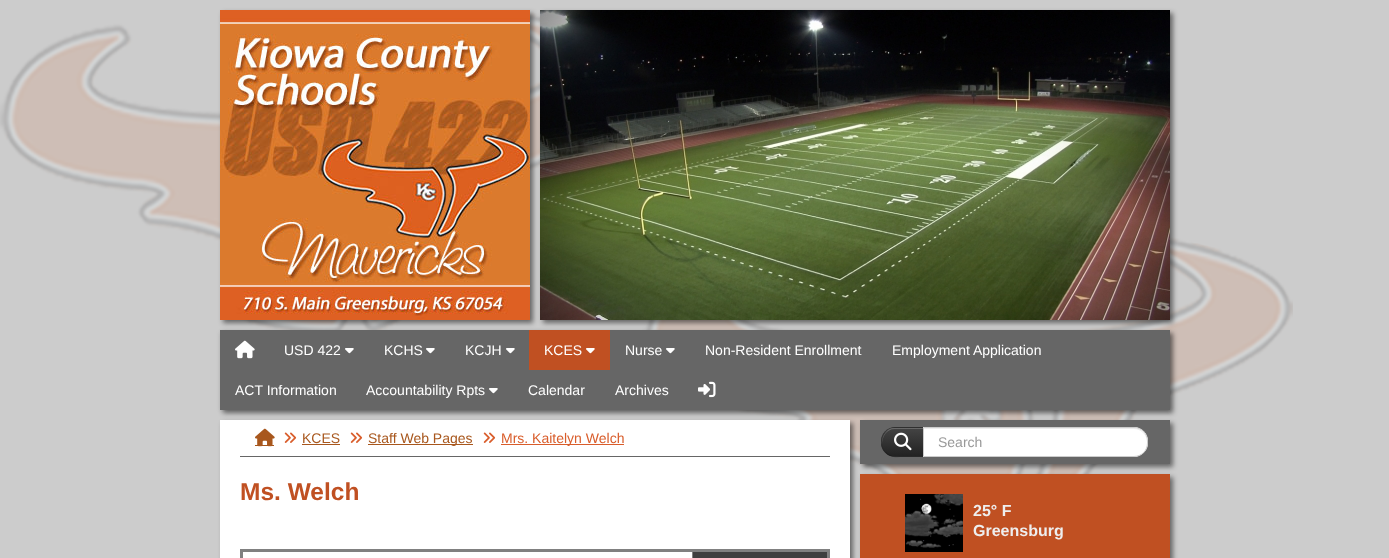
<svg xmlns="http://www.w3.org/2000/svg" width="1389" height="558">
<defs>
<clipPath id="clip1"><path d="M895 427h29v30h-29c-7.5 0-14-6.5-14-14v-2c0-7.5 6.5-14 14-14z"/></clipPath>
<linearGradient id="g1" gradientUnits="userSpaceOnUse" x1="903" y1="428" x2="903" y2="456"><stop offset="0" stop-color="#444"/><stop offset="1" stop-color="#222"/></linearGradient>
</defs>
<rect width="100%" height="100%" fill="#ccc"/>
<image x="0" y="12" width="1293" height="546" href="media/1.png"/>
<rect x="223" y="13" width="310" height="310" fill="#00000080" filter="blur(2.5px)"/>
<image x="220" y="10" width="310" height="310" href="media/2.png"/>
<rect x="543" y="13" width="630" height="310" fill="#00000080" filter="blur(2.5px)"/>
<image x="540" y="10" width="630" height="310" href="media/3.png"/>
<rect x="223" y="333" width="950" height="80" fill="#00000080" filter="blur(2.5px)"/>
<rect x="220" y="331" width="950" height="80" fill="#00000012" filter="blur(2px)"/>
<rect x="220" y="330" width="950" height="80" fill="#666"/>
<image x="235" y="340" width="20" height="19" href="media/4.png"/>
<text x="284" y="355" style="font-family:Liberation Sans;font-size:14px;fill:#fff">USD 422</text>
<image x="345" y="348" width="9" height="6" href="media/5.png"/>
<text x="384" y="355" style="font-family:Liberation Sans;font-size:14px;fill:#fff">KCHS</text>
<image x="426" y="348" width="9" height="6" href="media/5.png"/>
<text x="465" y="355" style="font-family:Liberation Sans;font-size:14px;fill:#fff">KCJH</text>
<image x="506" y="348" width="9" height="6" href="media/5.png"/>
<rect x="529" y="330" width="81" height="40" fill="#c05022"/>
<text x="544" y="355" style="font-family:Liberation Sans;font-size:14px;fill:#fff">KCES</text>
<image x="586" y="348" width="9" height="6" href="media/6.png"/>
<text x="625" y="355" style="font-family:Liberation Sans;font-size:14px;fill:#fff">Nurse</text>
<image x="666" y="348" width="9" height="6" href="media/5.png"/>
<text x="705" y="355" style="font-family:Liberation Sans;font-size:14px;fill:#fff">Non-Resident Enrollment</text>
<text x="892" y="355" style="font-family:Liberation Sans;font-size:14px;fill:#fff">Employment Application</text>
<text x="235" y="395" style="font-family:Liberation Sans;font-size:14px;fill:#fff">ACT Information</text>
<text x="366" y="395" style="font-family:Liberation Sans;font-size:14px;fill:#fff">Accountability Rpts</text>
<image x="489" y="388" width="9" height="6" href="media/5.png"/>
<text x="528" y="395" style="font-family:Liberation Sans;font-size:14px;fill:#fff">Calendar</text>
<text x="615" y="395" style="font-family:Liberation Sans;font-size:14px;fill:#fff">Archives</text>
<image x="698" y="381" width="18" height="17" href="media/7.png"/>
<rect x="223" y="423" width="630" height="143" fill="#00000080" filter="blur(2.5px)"/>
<rect x="220" y="420" width="630" height="138" fill="#fff"/>
<rect x="240" y="456" width="590" height="1" fill="#666"/>
<rect x="255" y="445" width="19" height="1" fill="#a8571d"/>
<image x="255" y="428" width="20" height="19" href="media/8.png"/>
<image x="284" y="432" width="13" height="11" href="media/9.png"/>
<text x="302" y="443" style="font-family:Liberation Sans;font-size:14px;fill:#a8571d">KCES</text>
<rect x="302" y="444" width="38" height="1" fill="#a8571d"/>
<image x="350" y="432" width="13" height="11" href="media/9.png"/>
<rect x="368" y="444" width="105" height="1" fill="#a8571d"/>
<text x="368" y="443" style="font-family:Liberation Sans;font-size:14px;fill:#a8571d">Staff Web Pages</text>
<image x="483" y="432" width="13" height="11" href="media/9.png"/>
<rect x="501" y="444" width="123" height="1" fill="#d95d2b"/>
<text x="501" y="443" style="font-family:Liberation Sans;font-size:14px;fill:#d95d2b">Mrs. Kaitelyn Welch</text>
<text x="240" y="500" style="font-family:Liberation Sans;font-size:24.5px;font-weight:bold;fill:#c05022">Ms. Welch</text>
<rect x="692" y="552" width="136" height="6" fill="#3f3f3f"/>
<rect x="692" y="550" width="1" height="8" fill="#808080"/>
<rect x="240" y="549" width="590" height="3" fill="#808080"/>
<rect x="827" y="549" width="3" height="9" fill="#808080"/>
<rect x="240" y="549" width="3" height="9" fill="#808080"/>
<rect x="863" y="423" width="310" height="44" fill="#00000080" filter="blur(2.5px)"/>
<rect x="860" y="420" width="310" height="44" fill="#666"/>
<path d="M895 427h29v30h-29c-7.5 0-14-6.5-14-14v-2c0-7.5 6.5-14 14-14z" fill="#363636"/>
<g clip-path="url(#clip1)">
<rect x="881" y="428" width="42" height="28" fill="url(#g1)"/>
</g>
<path d="M895 429h28v-1h-31c-7 2-11 10-10 17c0-8 4-16 13-16z" fill="#ffffff33"/>
<path d="M895 427c-4 0-7.5 1.5-9.5 4.5l.5 .5c2-2.5 5-4 9-4h28l1-1z" fill="#0000001a"/>
<path d="M924 457h-20.5c-7 0-13 1.5-18-4.5l.5-.5c1.5 2 4 3.5 6.5 4c3.5 .5 7.5 0 11 0h19.5z" fill="#00000040"/>
<path d="M885.5 431.5c-5 5.5-5.5 15.5 0 21l.5-.5c-5.5-5-5-14.5 0-20z" fill="#0000001a"/>
<image x="894" y="432" width="18" height="19" href="media/10.png"/>
<path d="M923 427h211c7.5 0 14 6.5 14 14v2c0 7.5-6.5 14-14 14h-211z" fill="#fff"/>
<path d="M924 429h210c7 0 13 6 13 13v-1c0-7-6-13-13-13h-210z" fill="#ececec"/>
<path d="M923.5 427.5h210.5c7.5 0 13.5 6 13.5 13.5v2c0 7.5-6 13.5-13.5 13.5h-210.5z" fill="none" stroke="#ccc"/>
<text x="938" y="447" style="font-family:Liberation Sans;font-size:14px;fill:#999">Search</text>
<rect x="863" y="477" width="310" height="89" fill="#00000080" filter="blur(2.5px)"/>
<rect x="860" y="474" width="310" height="84" fill="#c05022"/>
<image x="905" y="494" width="58" height="58" href="media/11.png"/>
<text x="973" y="516" style="font-family:Liberation Sans;font-size:16px;font-weight:bold;fill:#eee">25° F</text>
<text x="973" y="536" style="font-family:Liberation Sans;font-size:16px;font-weight:bold;fill:#eee">Greensburg</text>
</svg>
